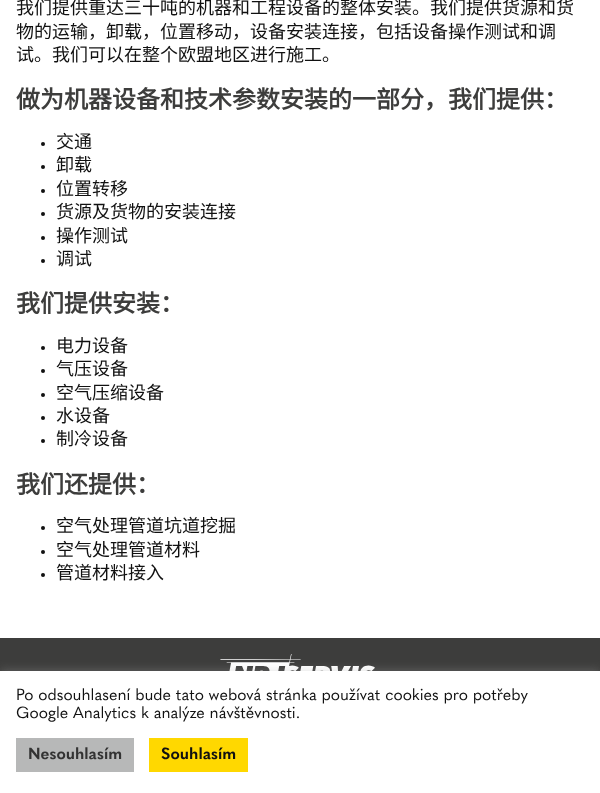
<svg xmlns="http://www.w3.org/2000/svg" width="600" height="793">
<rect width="100%" height="100%" fill="#fff"/>
<text x="16" y="14" style="font-family:Noto Sans CJK SC;font-size:18px;fill:#111">我们提供重达三十吨的机器和工程设备的整体安装。我们提供货源和货</text>
<text x="16" y="38" style="font-family:Noto Sans CJK SC;font-size:18px;fill:#111">物的运输，卸载，位置移动，设备安装连接，包括设备操作测试和调</text>
<text x="16" y="61" style="font-family:Noto Sans CJK SC;font-size:18px;fill:#111">试。我们可以在整个欧盟地区进行施工。</text>
<text x="16" y="108" style="font-family:Noto Sans CJK SC;font-size:24px;font-weight:bold;fill:#3d3d3c">做为机器设备和技术参数安装的一部分，我们提供：</text>
<circle cx="43" cy="144" r="2" fill="#111"/>
<text x="56" y="148" style="font-family:Noto Sans CJK SC;font-size:18px;fill:#111">交通</text>
<circle cx="43" cy="167" r="2" fill="#111"/>
<text x="56" y="171" style="font-family:Noto Sans CJK SC;font-size:18px;fill:#111">卸载</text>
<circle cx="43" cy="191" r="2" fill="#111"/>
<text x="56" y="195" style="font-family:Noto Sans CJK SC;font-size:18px;fill:#111">位置转移</text>
<circle cx="43" cy="214" r="2" fill="#111"/>
<text x="56" y="218" style="font-family:Noto Sans CJK SC;font-size:18px;fill:#111">货源及货物的安装连接</text>
<circle cx="43" cy="238" r="2" fill="#111"/>
<text x="56" y="242" style="font-family:Noto Sans CJK SC;font-size:18px;fill:#111">操作测试</text>
<circle cx="43" cy="261" r="2" fill="#111"/>
<text x="56" y="265" style="font-family:Noto Sans CJK SC;font-size:18px;fill:#111">调试</text>
<text x="16" y="312" style="font-family:Noto Sans CJK SC;font-size:24px;font-weight:bold;fill:#3d3d3c">我们提供安装：</text>
<circle cx="43" cy="348" r="2" fill="#111"/>
<text x="56" y="352" style="font-family:Noto Sans CJK SC;font-size:18px;fill:#111">电力设备</text>
<circle cx="43" cy="371" r="2" fill="#111"/>
<text x="56" y="375" style="font-family:Noto Sans CJK SC;font-size:18px;fill:#111">气压设备</text>
<circle cx="43" cy="395" r="2" fill="#111"/>
<text x="56" y="399" style="font-family:Noto Sans CJK SC;font-size:18px;fill:#111">空气压缩设备</text>
<circle cx="43" cy="418" r="2" fill="#111"/>
<text x="56" y="422" style="font-family:Noto Sans CJK SC;font-size:18px;fill:#111">水设备</text>
<circle cx="43" cy="441" r="2" fill="#111"/>
<text x="56" y="445" style="font-family:Noto Sans CJK SC;font-size:18px;fill:#111">制冷设备</text>
<text x="16" y="493" style="font-family:Noto Sans CJK SC;font-size:24px;font-weight:bold;fill:#3d3d3c">我们还提供：</text>
<circle cx="43" cy="528" r="2" fill="#111"/>
<text x="56" y="532" style="font-family:Noto Sans CJK SC;font-size:18px;fill:#111">空气处理管道坑道挖掘</text>
<circle cx="43" cy="552" r="2" fill="#111"/>
<text x="56" y="556" style="font-family:Noto Sans CJK SC;font-size:18px;fill:#111">空气处理管道材料</text>
<circle cx="43" cy="575" r="2" fill="#111"/>
<text x="56" y="579" style="font-family:Noto Sans CJK SC;font-size:18px;fill:#111">管道材料接入</text>
<rect y="638" width="600" height="33" fill="#3d3d3c"/>
<image x="220" y="654" width="155" height="17" href="media/1.png"/>
<rect y="670" width="600" height="122" fill="#acabab4d" filter="blur(5px)"/>
<rect y="671" width="600" height="122" fill="#fff"/>
<text x="16" y="700" style="font-family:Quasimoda;font-size:16px;fill:#111">Po odsouhlasení bude tato webová stránka používat cookies pro potřeby</text>
<text x="16" y="718" style="font-family:Quasimoda;font-size:16px;fill:#111">Google Analytics k analýze návštěvnosti.</text>
<rect x="16" y="738" width="118" height="34" fill="#b7b8b8"/>
<text x="28" y="759" style="font-family:Quasimoda;font-size:16px;font-weight:bold;fill:#333">Nesouhlasím</text>
<rect x="149" y="738" width="99" height="34" fill="#ffd800"/>
<text x="161" y="759" style="font-family:Quasimoda;font-size:16px;font-weight:bold;fill:#111">Souhlasím</text>
</svg>
